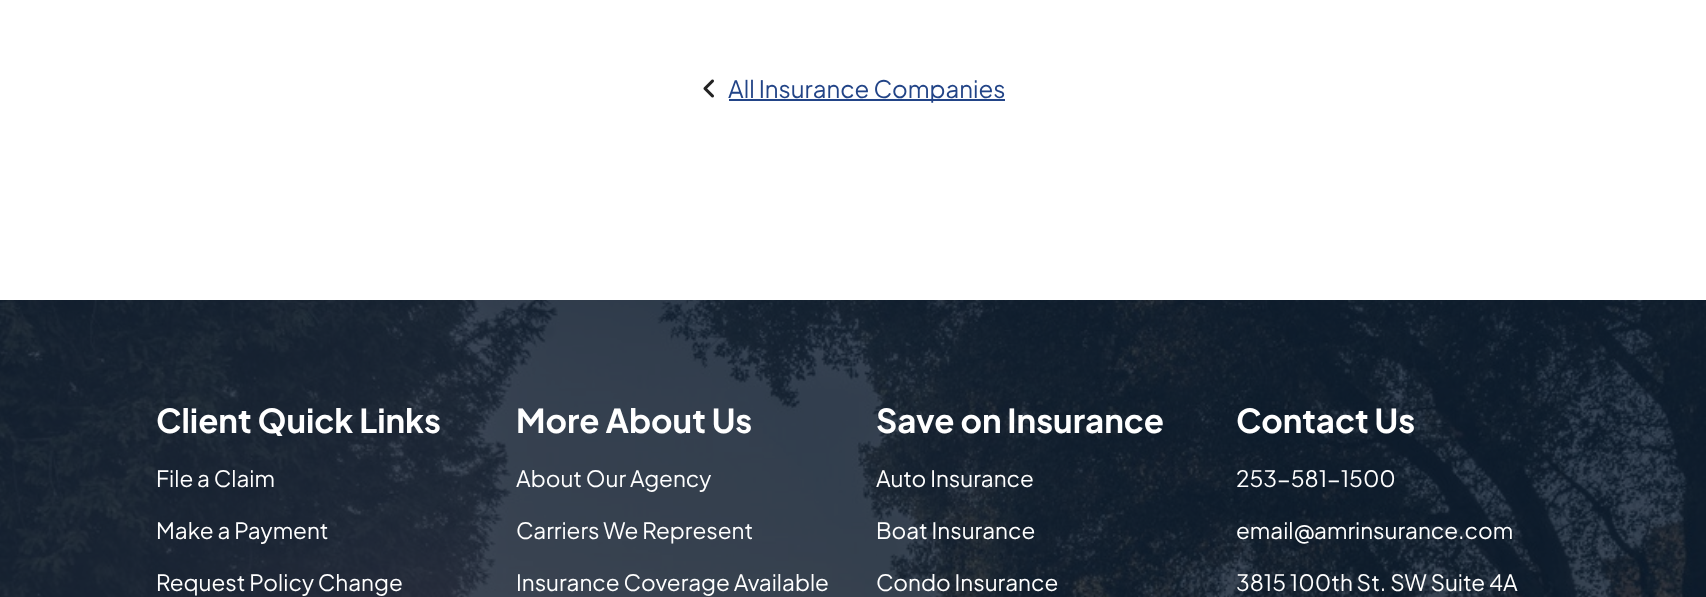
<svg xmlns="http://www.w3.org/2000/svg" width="1706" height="597">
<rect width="100%" height="100%" fill="#fff"/>
<image x="703" y="79" width="11" height="19" href="media/1.png"/>
<rect x="729" y="99" width="276" height="2" fill="#224487"/>
<text x="728" y="98" style="font-family:Plus Jakarta Sans;font-size:24px;fill:#224487">All Insurance Companies</text>
<image x="0" y="300" width="1706" height="297" href="media/2.png"/>
<text x="156" y="433" style="font-family:Plus Jakarta Sans;font-size:33px;font-weight:bold;fill:#fff">Client Quick Links</text>
<text x="156" y="487" style="font-family:Plus Jakarta Sans;font-size:22.5px;fill:#fff">File a Claim</text>
<text x="156" y="539" style="font-family:Plus Jakarta Sans;font-size:22.5px;fill:#fff">Make a Payment</text>
<text x="156" y="591" style="font-family:Plus Jakarta Sans;font-size:22.5px;fill:#fff">Request Policy Change</text>
<text x="516" y="433" style="font-family:Plus Jakarta Sans;font-size:33px;font-weight:bold;fill:#fff">More About Us</text>
<text x="516" y="487" style="font-family:Plus Jakarta Sans;font-size:22.5px;fill:#fff">About Our Agency</text>
<text x="516" y="539" style="font-family:Plus Jakarta Sans;font-size:22.5px;fill:#fff">Carriers We Represent</text>
<text x="516" y="591" style="font-family:Plus Jakarta Sans;font-size:22.5px;fill:#fff">Insurance Coverage Available</text>
<text x="876" y="433" style="font-family:Plus Jakarta Sans;font-size:33px;font-weight:bold;fill:#fff">Save on Insurance</text>
<text x="876" y="487" style="font-family:Plus Jakarta Sans;font-size:22.5px;fill:#fff">Auto Insurance</text>
<text x="876" y="539" style="font-family:Plus Jakarta Sans;font-size:22.5px;fill:#fff">Boat Insurance</text>
<text x="876" y="591" style="font-family:Plus Jakarta Sans;font-size:22.5px;fill:#fff">Condo Insurance</text>
<text x="1236" y="433" style="font-family:Plus Jakarta Sans;font-size:33px;font-weight:bold;fill:#fff">Contact Us</text>
<text x="1236" y="487" style="font-family:Plus Jakarta Sans;font-size:22.5px;fill:#fff">253-581-1500</text>
<text x="1236" y="539" style="font-family:Plus Jakarta Sans;font-size:22.5px;fill:#fff">email@amrinsurance.com</text>
<text x="1236" y="591" style="font-family:Plus Jakarta Sans;font-size:22.5px;fill:#fff">3815 100th St. SW Suite 4A</text>
</svg>
